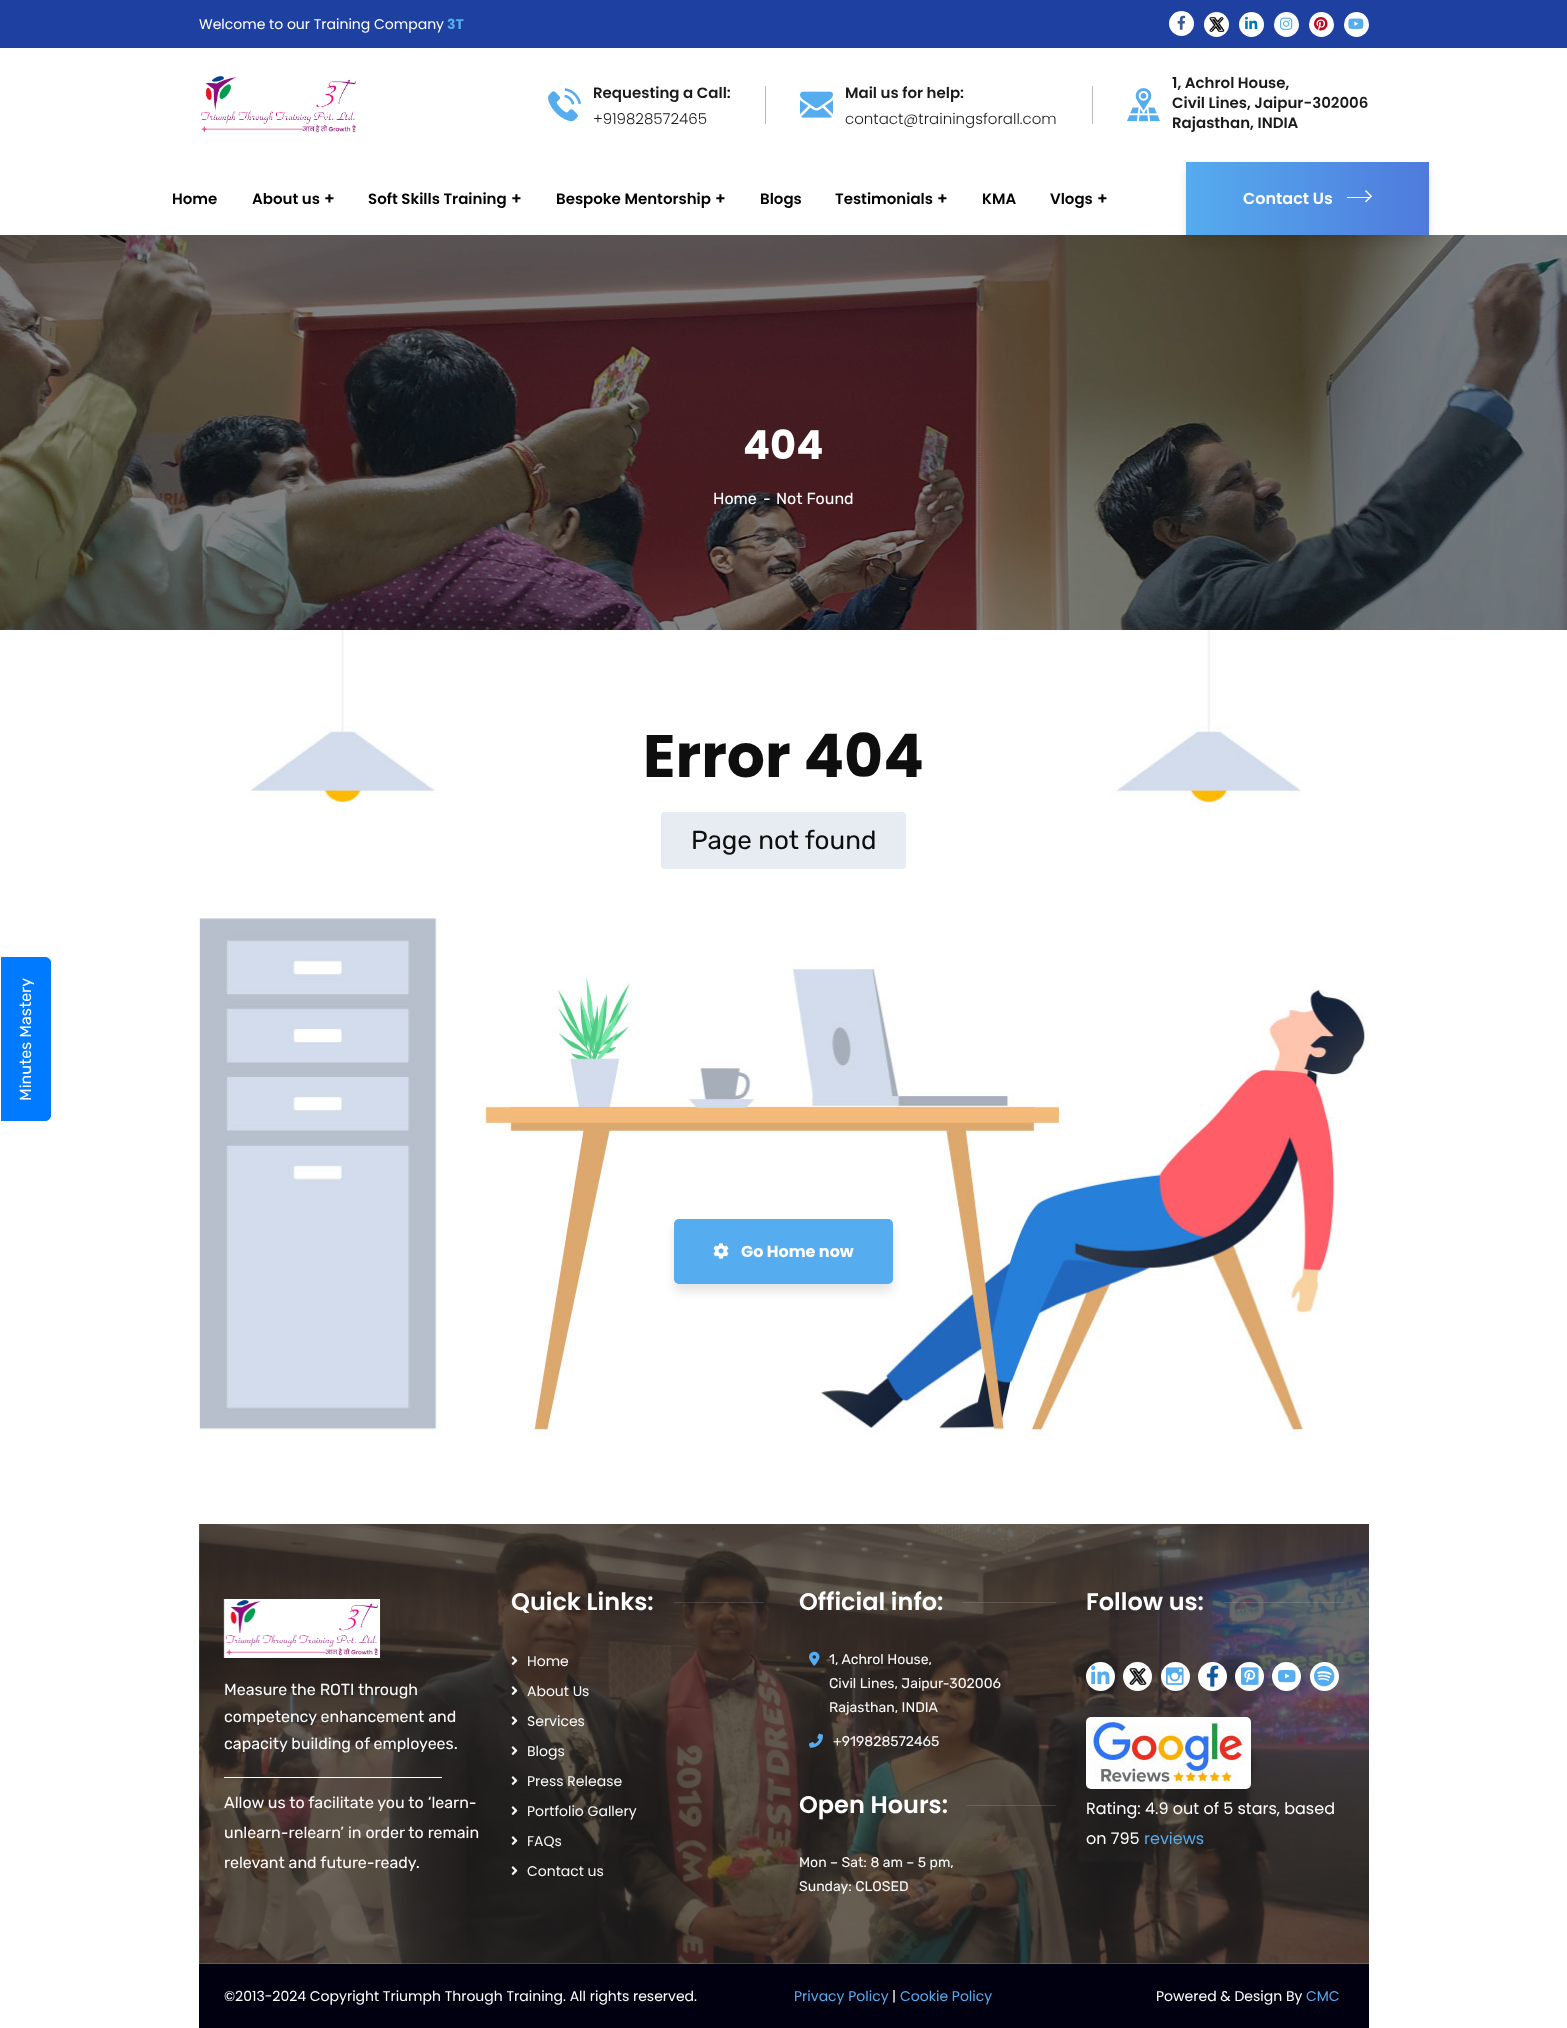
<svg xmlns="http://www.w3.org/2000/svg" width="1567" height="2028">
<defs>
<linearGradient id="g1" gradientUnits="userSpaceOnUse" x1="1186" y1="199" x2="1429" y2="199"><stop offset="0" stop-color="#55acee"/><stop offset="1" stop-color="#4f7add"/></linearGradient>
</defs>
<rect width="100%" height="100%" fill="#fff"/>
<path d="M1 1121v-164h45c2 0 5 3 5 5v154c0 2-3 5-5 5z" fill="#007bff"/>
<text x="31" y="1101" transform="rotate(-90 31 1101)" style="font-family:Rubik;font-size:16px;fill:#fff">Minutes Mastery</text>
<rect width="1567" height="48" fill="#1e40a1"/>
<text x="199" y="29" style="font-family:Poppins;font-size:14px;fill:#fff">Welcome to our Training Company</text>
<text x="447" y="29" style="font-family:Poppins;font-size:14px;font-weight:bold;fill:#55acee">3T</text>
<circle cx="1181.5" cy="23.5" r="12.5" fill="#fff"/>
<image x="1177" y="15" width="9" height="15" href="media/1.png"/>
<image x="1204" y="12" width="25" height="25" href="media/2.png"/>
<circle cx="1251.5" cy="24.5" r="12.5" fill="#fff"/>
<image x="1245" y="16" width="13" height="13" href="media/3.png"/>
<circle cx="1286.5" cy="24.5" r="12.5" fill="#fff"/>
<image x="1280" y="17" width="13" height="13" href="media/4.png"/>
<circle cx="1321.5" cy="24.5" r="12.5" fill="#fff"/>
<image x="1314" y="17" width="14" height="14" href="media/5.png"/>
<circle cx="1356.5" cy="24.5" r="12.5" fill="#fff"/>
<image x="1348" y="18" width="16" height="11" href="media/6.png"/>
<image x="201" y="75" width="155" height="58" href="media/7.png"/>
<image x="548" y="88" width="33" height="34" href="media/8.png"/>
<text x="593" y="98" style="font-family:Poppins;font-size:15px;font-weight:600;fill:#1a1a1a">Requesting a Call:</text>
<text x="593" y="124" style="font-family:Poppins;font-size:15px;font-weight:300;fill:#1a1a1a">+919828572465</text>
<rect x="765" y="86" width="1" height="38" fill="#bababa"/>
<image x="800" y="91" width="33" height="27" href="media/9.png"/>
<text x="845" y="98" style="font-family:Poppins;font-size:15px;font-weight:600;fill:#1a1a1a">Mail us for help:</text>
<text x="845" y="124" style="font-family:Poppins;font-size:15px;font-weight:300;fill:#1a1a1a">contact@trainingsforall.com</text>
<rect x="1092" y="86" width="1" height="38" fill="#bababa"/>
<image x="1127" y="88" width="33" height="34" href="media/10.png"/>
<text x="1172" y="88" style="font-family:Poppins;font-size:15px;font-weight:600;fill:#1a1a1a">1, Achrol House,</text>
<text x="1172" y="108" style="font-family:Poppins;font-size:15px;font-weight:600;fill:#1a1a1a">Civil Lines, Jaipur-302006</text>
<text x="1172" y="128" style="font-family:Poppins;font-size:15px;font-weight:600;fill:#1a1a1a">Rajasthan, INDIA</text>
<text x="172" y="204" style="font-family:Poppins;font-size:15px;font-weight:600;fill:#000">Home</text>
<text x="252" y="204" style="font-family:Poppins;font-size:15px;font-weight:600;fill:#000">About us</text>
<text x="324" y="204" style="font-family:Poppins;font-size:16px;font-weight:600;fill:#000">+</text>
<text x="368" y="204" style="font-family:Poppins;font-size:15px;font-weight:600;fill:#000">Soft Skills Training</text>
<text x="511" y="204" style="font-family:Poppins;font-size:16px;font-weight:600;fill:#000">+</text>
<text x="556" y="204" style="font-family:Poppins;font-size:15px;font-weight:600;fill:#000">Bespoke Mentorship</text>
<text x="715" y="204" style="font-family:Poppins;font-size:16px;font-weight:600;fill:#000">+</text>
<text x="760" y="204" style="font-family:Poppins;font-size:15px;font-weight:600;fill:#000">Blogs</text>
<text x="835" y="204" style="font-family:Poppins;font-size:15px;font-weight:600;fill:#000">Testimonials</text>
<text x="937" y="204" style="font-family:Poppins;font-size:16px;font-weight:600;fill:#000">+</text>
<text x="982" y="204" style="font-family:Poppins;font-size:15px;font-weight:600;fill:#000">KMA</text>
<text x="1050" y="204" style="font-family:Poppins;font-size:15px;font-weight:600;fill:#000">Vlogs</text>
<text x="1097" y="204" style="font-family:Poppins;font-size:16px;font-weight:600;fill:#000">+</text>
<image x="0" y="235" width="1567" height="395" href="media/12.png"/>
<rect x="1186" y="170" width="243" height="73" fill="#0c0c0c1a" filter="blur(5px)"/>
<rect x="1186" y="162" width="243" height="73" fill="url(#g1)"/>
<text x="1243" y="204" style="font-family:Poppins;font-size:16px;font-weight:600;fill:#fff">Contact Us</text>
<image x="1365" y="190" width="7" height="13" href="media/11.png"/>
<rect x="1347" y="197" width="23" height="1" fill="#fff"/>
<text x="743" y="459" style="font-family:Poppins;font-size:40px;font-weight:bold;fill:#fff">404</text>
<text x="713" y="504" style="font-family:Rubik;font-size:16px;fill:#fff">Home</text>
<text x="763" y="504" style="font-family:Rubik;font-size:16px;fill:#fff">-</text>
<text x="776" y="504" style="font-family:Rubik;font-size:16px;fill:#fff">Not Found</text>
<image x="195" y="630" width="1171" height="806" href="media/13.png"/>
<text x="643" y="777" style="font-family:Poppins;font-size:60px;font-weight:bold;fill:#0e0e0e">Error 404</text>
<rect x="661" y="812" width="245" height="57" rx="4" fill="#e7ecf3"/>
<text x="691" y="849" style="font-family:Rubik;font-size:26px;fill:#0e0e0e">Page not found</text>
<rect x="674" y="1227" width="219" height="65" rx="5" fill="#0c0c0c1a" filter="blur(5px)"/>
<rect x="674" y="1219" width="219" height="65" rx="5" fill="#55acee"/>
<image x="713" y="1243" width="16" height="16" href="media/14.png"/>
<text x="741" y="1257" style="font-family:Poppins;font-size:16px;font-weight:bold;fill:#fff">Go Home now</text>
<image x="199" y="1524" width="1170" height="440" href="media/15.png"/>
<image x="223" y="1599" width="158" height="59" href="media/16.png"/>
<text x="224" y="1695" style="font-family:Rubik;font-size:16px;fill:#f9f9f9">Measure the ROTI through</text>
<text x="224" y="1722" style="font-family:Rubik;font-size:16px;fill:#f9f9f9">competency enhancement and</text>
<text x="224" y="1749" style="font-family:Rubik;font-size:16px;fill:#f9f9f9">capacity building of employees.</text>
<rect x="224" y="1777" width="218" height="1" fill="#fff"/>
<text x="224" y="1808" style="font-family:Rubik;font-size:16px;fill:#fff8f8">Allow us to facilitate you to ‘learn-</text>
<text x="224" y="1838" style="font-family:Rubik;font-size:16px;fill:#fff8f8">unlearn-relearn’ in order to remain</text>
<text x="224" y="1868" style="font-family:Rubik;font-size:16px;fill:#fff8f8">relevant and future-ready.</text>
<text x="511" y="1610" style="font-family:Poppins;font-size:24px;font-weight:600;fill:#fff">Quick Links:</text>
<rect x="674" y="1602" width="90" height="1" fill="#e9eaee26"/>
<image x="511" y="1656" width="7" height="9" href="media/17.png"/>
<text x="527" y="1666" style="font-family:Poppins;font-size:14px;fill:#f9f9f9">Home</text>
<image x="511" y="1686" width="7" height="9" href="media/18.png"/>
<text x="527" y="1696" style="font-family:Poppins;font-size:14px;fill:#f9f9f9">About Us</text>
<image x="511" y="1716" width="7" height="9" href="media/19.png"/>
<text x="527" y="1726" style="font-family:Poppins;font-size:14px;fill:#f9f9f9">Services</text>
<image x="511" y="1746" width="7" height="9" href="media/20.png"/>
<text x="527" y="1756" style="font-family:Poppins;font-size:14px;fill:#f9f9f9">Blogs</text>
<image x="511" y="1776" width="7" height="9" href="media/21.png"/>
<text x="527" y="1786" style="font-family:Poppins;font-size:14px;fill:#f9f9f9">Press Release</text>
<image x="511" y="1806" width="7" height="9" href="media/22.png"/>
<text x="527" y="1816" style="font-family:Poppins;font-size:14px;fill:#f9f9f9">Portfolio Gallery</text>
<image x="511" y="1836" width="7" height="9" href="media/23.png"/>
<text x="527" y="1846" style="font-family:Poppins;font-size:14px;fill:#f9f9f9">FAQs</text>
<image x="511" y="1866" width="7" height="9" href="media/24.png"/>
<text x="527" y="1876" style="font-family:Poppins;font-size:14px;fill:#f9f9f9">Contact us</text>
<text x="799" y="1610" style="font-family:Poppins;font-size:24px;font-weight:600;fill:#fff">Official info:</text>
<rect x="963" y="1602" width="93" height="1" fill="#e9eaee26"/>
<image x="809" y="1651" width="11" height="15" href="media/25.png"/>
<text x="829" y="1664" style="font-family:Rubik;font-size:14px;fill:#f9f9f9">1, Achrol House,</text>
<text x="829" y="1688" style="font-family:Rubik;font-size:14px;fill:#f9f9f9">Civil Lines, Jaipur-302006</text>
<text x="829" y="1712" style="font-family:Rubik;font-size:14px;fill:#f9f9f9">Rajasthan, INDIA</text>
<image x="809" y="1733" width="14" height="15" href="media/26.png"/>
<text x="833" y="1746" style="font-family:Rubik;font-size:14px;fill:#f9f9f9">+919828572465</text>
<text x="799" y="1813" style="font-family:Poppins;font-size:24px;font-weight:600;fill:#fff">Open Hours:</text>
<rect x="967" y="1805" width="89" height="1" fill="#e9eaee26"/>
<text x="799" y="1867" style="font-family:Rubik;font-size:14px;fill:#f9f9f9">Mon – Sat: 8 am – 5 pm,</text>
<text x="799" y="1891" style="font-family:Rubik;font-size:14px;fill:#f9f9f9">Sunday: CLOSED</text>
<text x="1086" y="1610" style="font-family:Poppins;font-size:24px;font-weight:600;fill:#fff">Follow us:</text>
<rect x="1224" y="1602" width="120" height="1" fill="#e9eaee26"/>
<circle cx="1100.5" cy="1676.5" r="14.5" fill="#fff"/>
<image x="1091" y="1665" width="19" height="19" href="media/27.png"/>
<image x="1123" y="1662" width="29" height="29" href="media/28.png"/>
<circle cx="1175.5" cy="1676.5" r="14.5" fill="#fff"/>
<image x="1166" y="1667" width="18" height="18" href="media/29.png"/>
<circle cx="1212.5" cy="1676.5" r="14.5" fill="#fff"/>
<image x="1206" y="1665" width="13" height="22" href="media/30.png"/>
<circle cx="1249.5" cy="1676.5" r="14.5" fill="#fff"/>
<image x="1241" y="1667" width="18" height="18" href="media/31.png"/>
<circle cx="1286.5" cy="1676.5" r="14.5" fill="#fff"/>
<image x="1278" y="1670" width="18" height="13" href="media/32.png"/>
<circle cx="1324.5" cy="1676.5" r="14.5" fill="#fff"/>
<image x="1314" y="1666" width="21" height="21" href="media/33.png"/>
<image x="1086" y="1717" width="165" height="72" href="media/34.png"/>
<text x="1086" y="1814" style="font-family:Poppins;font-size:16px;fill:#fff">Rating: 4.9 out of 5 stars, based</text>
<text x="1086" y="1844" style="font-family:Poppins;font-size:16px;fill:#fff">on 795</text>
<text x="1144" y="1844" style="font-family:Poppins;font-size:16px;fill:#55acee">reviews</text>
<rect x="199" y="1964" width="1170" height="64" fill="#010011"/>
<text x="224" y="2001" style="font-family:Poppins;font-size:14px;fill:#fff">©2013-2024 Copyright Triumph Through Training. All rights reserved.</text>
<text x="794" y="2001" style="font-family:Poppins;font-size:14px;fill:#55acee">Privacy Policy</text>
<text x="892" y="2001" style="font-family:Poppins;font-size:14px;fill:#fff">|</text>
<text x="900" y="2001" style="font-family:Poppins;font-size:14px;fill:#55acee">Cookie Policy</text>
<text x="1156" y="2001" style="font-family:Poppins;font-size:14px;fill:#fff">Powered &amp; Design By</text>
<text x="1306" y="2001" style="font-family:Poppins;font-size:14px;fill:#55acee">CMC</text>
</svg>
